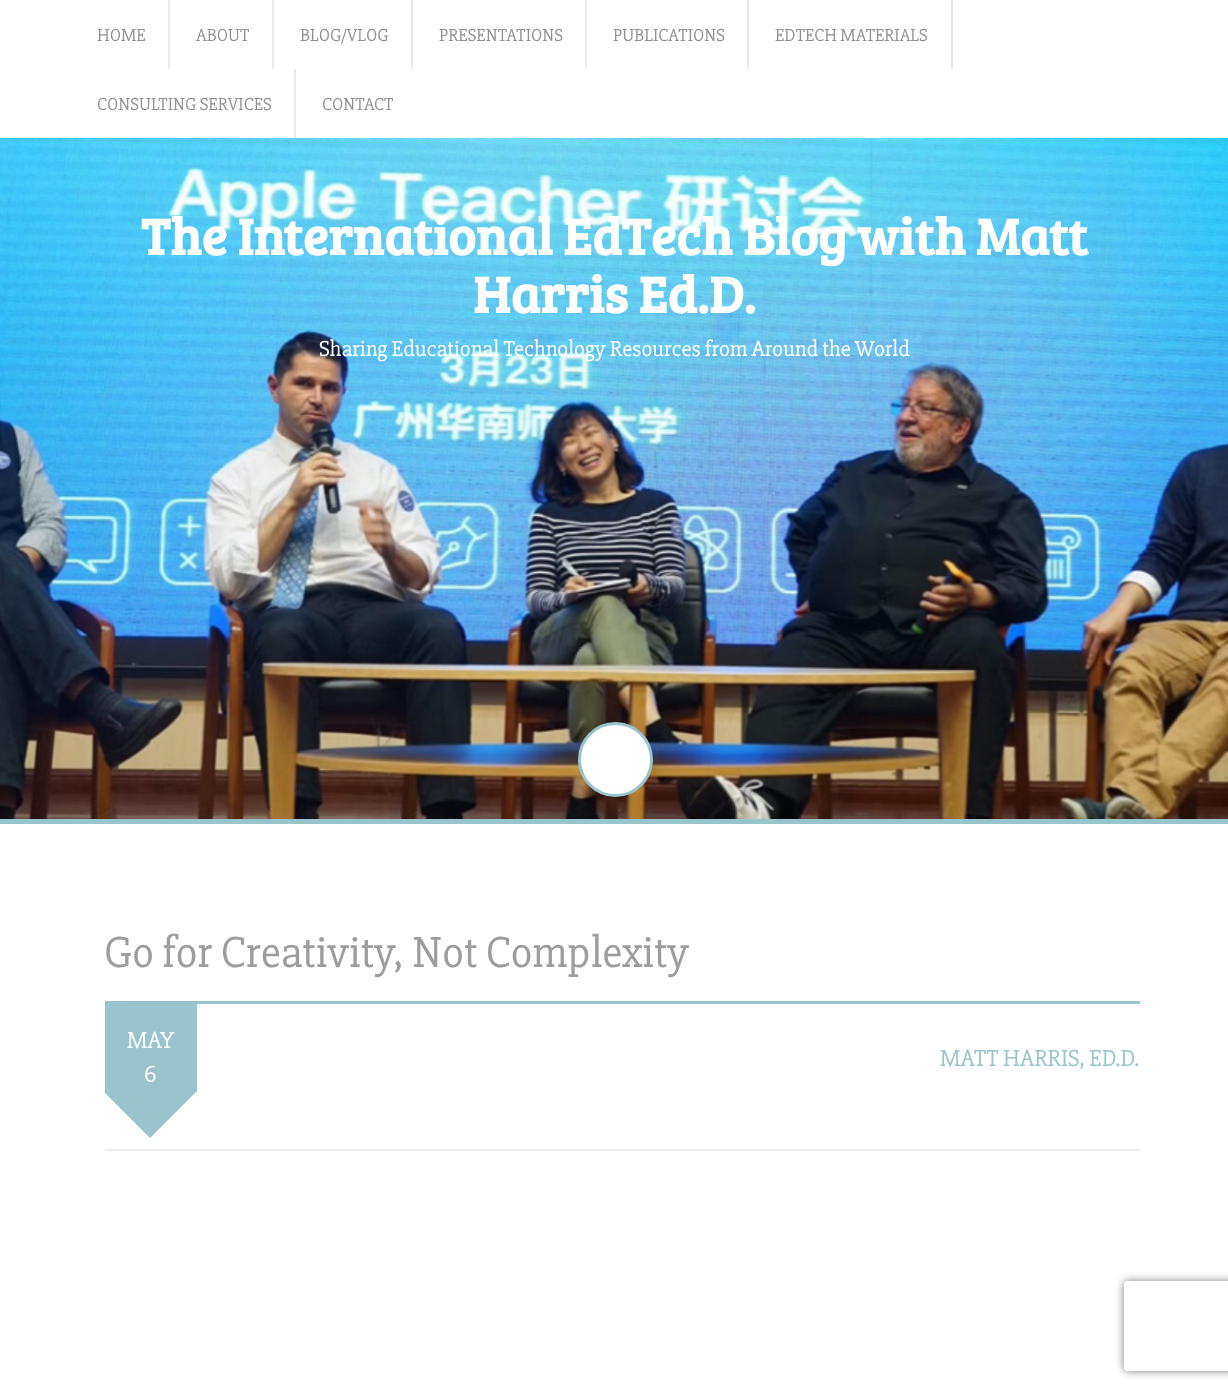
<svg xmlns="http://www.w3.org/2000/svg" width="1228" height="1391">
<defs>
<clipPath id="clip1"><path d="M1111 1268h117v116h-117zm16 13h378c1.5 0 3 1.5 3 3v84c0 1.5-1.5 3-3 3h-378c-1.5 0-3-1.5-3-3v-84c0-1.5 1.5-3 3-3z" clip-rule="evenodd"/></clipPath>
</defs>
<rect width="100%" height="100%" fill="#fff"/>
<rect x="168" width="2" height="69" fill="#eaeaea"/>
<text x="97" y="41" style="font-family:'Slabo 27px';font-size:18px;fill:#919191">HOME</text>
<rect x="272" width="2" height="69" fill="#eaeaea"/>
<text x="196" y="41" style="font-family:'Slabo 27px';font-size:18px;fill:#919191">ABOUT</text>
<rect x="411" width="2" height="69" fill="#eaeaea"/>
<text x="300" y="41" style="font-family:'Slabo 27px';font-size:18px;fill:#919191">BLOG/VLOG</text>
<rect x="585" width="2" height="69" fill="#eaeaea"/>
<text x="439" y="41" style="font-family:'Slabo 27px';font-size:18px;fill:#919191">PRESENTATIONS</text>
<rect x="747" width="2" height="69" fill="#eaeaea"/>
<text x="613" y="41" style="font-family:'Slabo 27px';font-size:18px;fill:#919191">PUBLICATIONS</text>
<rect x="951" width="2" height="69" fill="#eaeaea"/>
<text x="775" y="41" style="font-family:'Slabo 27px';font-size:18px;fill:#919191">EDTECH MATERIALS</text>
<rect x="294" y="69" width="2" height="69" fill="#eaeaea"/>
<text x="97" y="110" style="font-family:'Slabo 27px';font-size:18px;fill:#919191">CONSULTING SERVICES</text>
<text x="322" y="110" style="font-family:'Slabo 27px';font-size:18px;fill:#919191">CONTACT</text>
<image x="0" y="138" width="1228" height="681" href="media/1.png"/>
<text x="141" y="255" style="font-family:Bree Serif;font-size:52.5px;font-weight:bold;fill:#fff">The International EdTech Blog with Matt</text>
<text x="473" y="313" style="font-family:Bree Serif;font-size:52.5px;font-weight:bold;fill:#fff">Harris Ed.D.</text>
<text x="319" y="356" style="font-family:'Slabo 27px';font-size:22.5px;fill:#fff">Sharing Educational Technology Resources from Around the World</text>
<circle cx="615.5" cy="759.5" r="36" fill="#fff" stroke="#9ac4cc" stroke-width="3"/>
<rect y="819" width="1228" height="5" fill="#9ac4cc"/>
<text x="104" y="967" style="font-family:'Slabo 27px';font-size:45px;fill:#9d9d9d">Go for Creativity, Not Complexity</text>
<rect x="105" y="1001" width="1035" height="3" fill="#9ac4cc"/>
<rect x="105" y="1149" width="1035" height="2" fill="#eee"/>
<rect x="105" y="1004" width="92" height="88" fill="#9ac4cc"/>
<path d="M150 1046l46 46l-46 46l-46-46z" fill="#9ac4cc"/>
<text x="127" y="1048" style="font-family:'Slabo 27px';font-size:24px;fill:#fff">MAY</text>
<text x="144" y="1082" style="font-family:'Slabo 27px';font-size:24px;fill:#fff">6</text>
<text x="940" y="1066" style="font-family:'Slabo 27px';font-size:24px;fill:#9ac4cc">MATT HARRIS, ED.D.</text>
<g clip-path="url(#clip1)">
<rect x="1124" y="1281" width="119" height="90" rx="3" fill="#808080" filter="blur(4px)"/>
</g>
</svg>
